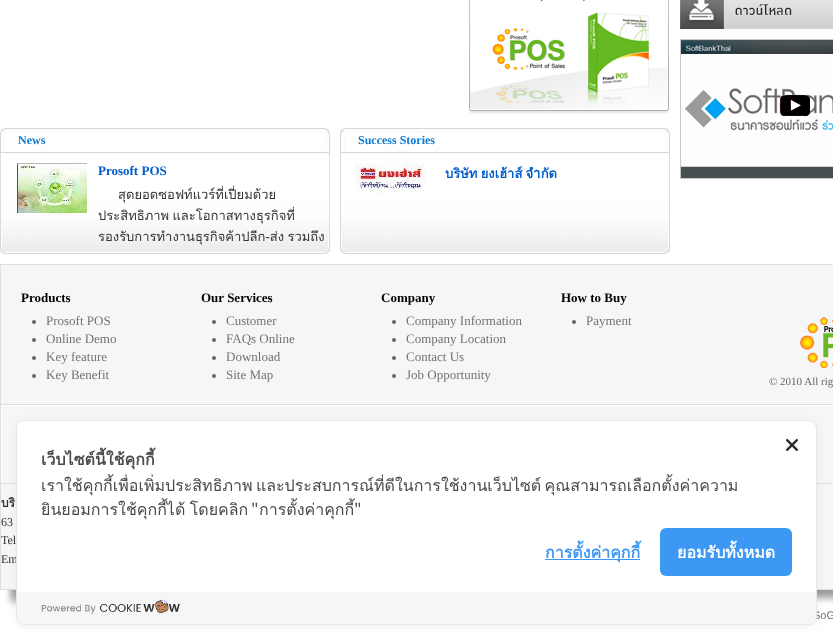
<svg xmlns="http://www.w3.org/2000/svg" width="833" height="641">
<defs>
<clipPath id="clip1"><rect x="1" y="405" width="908" height="78"/></clipPath>
</defs>
<rect width="100%" height="100%" fill="#fff"/>
<image x="680" y="0" width="153" height="29" href="media/1.png"/>
<image x="680" y="39" width="153" height="140" href="media/2.png"/>
<image x="780" y="95" width="30" height="21" href="media/3.png"/>
<image x="469" y="0" width="200" height="114" href="media/4.png"/>
<image x="0" y="128" width="18" height="25" href="media/5.png"/>
<image x="18" y="128" width="294" height="25" href="media/6.png"/>
<text x="18" y="144" style="font-family:Liberation Serif;font-size:12px;font-weight:bold;fill:#0978d1">News</text>
<image x="312" y="128" width="18" height="25" href="media/7.png"/>
<image x="1" y="202" width="328" height="31" href="media/8.png"/>
<rect x="329" y="153" width="1" height="80" fill="#ddd"/>
<rect y="153" width="1" height="80" fill="#ddd"/>
<image x="17" y="163" width="70" height="50" href="media/9.png"/>
<text x="98" y="175" style="font-family:Liberation Serif;font-size:13px;font-weight:bold;fill:#005bcb">Prosoft POS</text>
<text x="118" y="199" style="font-family:Loma;font-size:13px;fill:#333">สุดยอดซอฟท์แวร์ที่เปี่ยมด้วย</text>
<text x="98" y="220" word-spacing="-1" style="font-family:Loma;font-size:13px;fill:#333">ประสิทธิภาพ และโอกาสทางธุรกิจที่</text>
<image x="13" y="233" width="304" height="21" href="media/11.png"/>
<image x="317" y="233" width="13" height="21" href="media/12.png"/>
<text x="98" y="241" word-spacing="-1" style="font-family:Loma;font-size:13px;fill:#333">รองรับการทำงานธุรกิจค้าปลีก-ส่ง รวมถึง</text>
<image x="0" y="233" width="13" height="21" href="media/10.png"/>
<image x="340" y="128" width="18" height="25" href="media/5.png"/>
<image x="358" y="128" width="294" height="25" href="media/6.png"/>
<text x="358" y="144" style="font-family:Liberation Serif;font-size:12px;font-weight:bold;fill:#0978d1">Success Stories</text>
<image x="652" y="128" width="18" height="25" href="media/7.png"/>
<image x="341" y="202" width="328" height="31" href="media/8.png"/>
<rect x="669" y="153" width="1" height="80" fill="#ddd"/>
<rect x="340" y="153" width="1" height="80" fill="#ddd"/>
<image x="355" y="163" width="70" height="30" href="media/13.png"/>
<text x="445" y="178" word-spacing="-1" style="font-family:Loma;font-size:13px;font-weight:bold;fill:#005bcb">บริษัท ยงเฮ้าส์ จำกัด</text>
<image x="340" y="233" width="13" height="21" href="media/10.png"/>
<image x="353" y="233" width="304" height="21" href="media/11.png"/>
<image x="657" y="233" width="13" height="21" href="media/12.png"/>
<rect x="1" y="265" width="832" height="324" fill="#f5f6f8"/>
<rect y="264" width="833" height="1" fill="#dddedf"/>
<rect y="264" width="1" height="325" fill="#dddedf"/>
<text x="21" y="302" style="font-family:Liberation Serif;font-size:13px;font-weight:bold;fill:#000">Products</text>
<circle cx="34" cy="322" r="2" fill="#666"/>
<text x="46" y="325" style="font-family:Liberation Serif;font-size:13px;fill:#737373">Prosoft POS</text>
<circle cx="34" cy="340" r="2" fill="#666"/>
<text x="46" y="343" style="font-family:Liberation Serif;font-size:13px;fill:#737373">Online Demo</text>
<circle cx="34" cy="358" r="2" fill="#666"/>
<text x="46" y="361" style="font-family:Liberation Serif;font-size:13px;fill:#737373">Key feature</text>
<circle cx="34" cy="376" r="2" fill="#666"/>
<text x="46" y="379" style="font-family:Liberation Serif;font-size:13px;fill:#737373">Key Benefit</text>
<text x="201" y="302" style="font-family:Liberation Serif;font-size:13px;font-weight:bold;fill:#000">Our Services</text>
<circle cx="214" cy="322" r="2" fill="#666"/>
<text x="226" y="325" style="font-family:Liberation Serif;font-size:13px;fill:#737373">Customer</text>
<circle cx="214" cy="340" r="2" fill="#666"/>
<text x="226" y="343" style="font-family:Liberation Serif;font-size:13px;fill:#737373">FAQs Online</text>
<circle cx="214" cy="358" r="2" fill="#666"/>
<text x="226" y="361" style="font-family:Liberation Serif;font-size:13px;fill:#737373">Download</text>
<circle cx="214" cy="376" r="2" fill="#666"/>
<text x="226" y="379" style="font-family:Liberation Serif;font-size:13px;fill:#737373">Site Map</text>
<text x="381" y="302" style="font-family:Liberation Serif;font-size:13px;font-weight:bold;fill:#000">Company</text>
<circle cx="394" cy="322" r="2" fill="#666"/>
<text x="406" y="325" style="font-family:Liberation Serif;font-size:13px;fill:#737373">Company Information</text>
<circle cx="394" cy="340" r="2" fill="#666"/>
<text x="406" y="343" style="font-family:Liberation Serif;font-size:13px;fill:#737373">Company Location</text>
<circle cx="394" cy="358" r="2" fill="#666"/>
<text x="406" y="361" style="font-family:Liberation Serif;font-size:13px;fill:#737373">Contact Us</text>
<circle cx="394" cy="376" r="2" fill="#666"/>
<text x="406" y="379" style="font-family:Liberation Serif;font-size:13px;fill:#737373">Job Opportunity</text>
<text x="561" y="302" style="font-family:Liberation Serif;font-size:13px;font-weight:bold;fill:#000">How to Buy</text>
<circle cx="574" cy="322" r="2" fill="#666"/>
<text x="586" y="325" style="font-family:Liberation Serif;font-size:13px;fill:#737373">Payment</text>
<image x="800" y="317" width="33" height="51" href="media/14.png"/>
<text x="769" y="385" style="font-family:Liberation Serif;font-size:11px;fill:#666">© 2010 All rig</text>
<g clip-path="url(#clip1)">
<path d="M-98 306h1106v276h-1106zm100 100h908v78h-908z" fill="#fff" fill-rule="evenodd"/>
</g>
<rect x="1" y="404" width="832" height="1" fill="#dddedf"/>
<rect x="1" y="483" width="832" height="1" fill="#dddedf"/>
<text x="1" y="507" word-spacing="-1" style="font-family:Loma;font-size:12px;font-weight:bold;fill:#333">บริ</text>
<text x="1" y="526" style="font-family:Liberation Serif;font-size:12px;fill:#333">63</text>
<text x="1" y="544" style="font-family:Liberation Serif;font-size:12px;fill:#333">Tel</text>
<text x="1" y="563" style="font-family:Liberation Serif;font-size:12px;fill:#333">Em</text>
<image x="0" y="589" width="833" height="20" href="media/15.png"/>
<text x="813" y="619" style="font-family:Liberation Sans;font-size:11px;fill:#737373">SoG</text>
<rect x="16" y="422" width="801" height="205" rx="8" fill="#0000000d" filter="blur(4px)"/>
<rect x="16.5" y="420.5" width="800" height="204" rx="7.5" fill="#fff" stroke="#e8e8e8"/>
<image x="786" y="439" width="12" height="12" href="media/16.png"/>
<text x="41" y="465" style="font-family:Loma;font-size:16px;font-weight:bold;fill:#4a4a4a">เว็บไซต์นี้ใช้คุกกี้</text>
<text x="41" y="491" word-spacing="-2" style="font-family:Loma;font-size:16px;fill:#4a4a4a">เราใช้คุกกี้เพื่อเพิ่มประสิทธิภาพ และประสบการณ์ที่ดีในการใช้งานเว็บไซต์ คุณสามารถเลือกตั้งค่าความ</text>
<text x="41" y="515" word-spacing="-1" style="font-family:Loma;font-size:16px;fill:#4a4a4a">ยินยอมการใช้คุกกี้ได้ โดยคลิก</text>
<text x="251" y="515" style="font-family:Noto Sans JP;font-size:16px;fill:#4a4a4a">"</text>
<text x="259" y="515" style="font-family:Loma;font-size:16px;fill:#4a4a4a">การตั้งค่าคุกกี้</text>
<text x="354" y="515" style="font-family:Noto Sans JP;font-size:16px;fill:#4a4a4a">"</text>
<rect x="545" y="559" width="95" height="1" fill="#3d98f3"/>
<text x="545" y="558" style="font-family:Loma;font-size:16px;font-weight:bold;fill:#3d98f3">การตั้งค่าคุกกี้</text>
<rect x="660" y="528" width="132" height="48" rx="6" fill="#3d98f3"/>
<text x="677" y="558" style="font-family:Loma;font-size:16px;font-weight:bold;fill:#fff">ยอมรับทั้งหมด</text>
<path d="M17 592h799v24c0 4.5-3.5 8-8 8h-783c-4.5 0-8-3.5-8-8z" fill="#f6f6f6"/>
<image x="41" y="599" width="139" height="15" href="media/17.png"/>
</svg>
